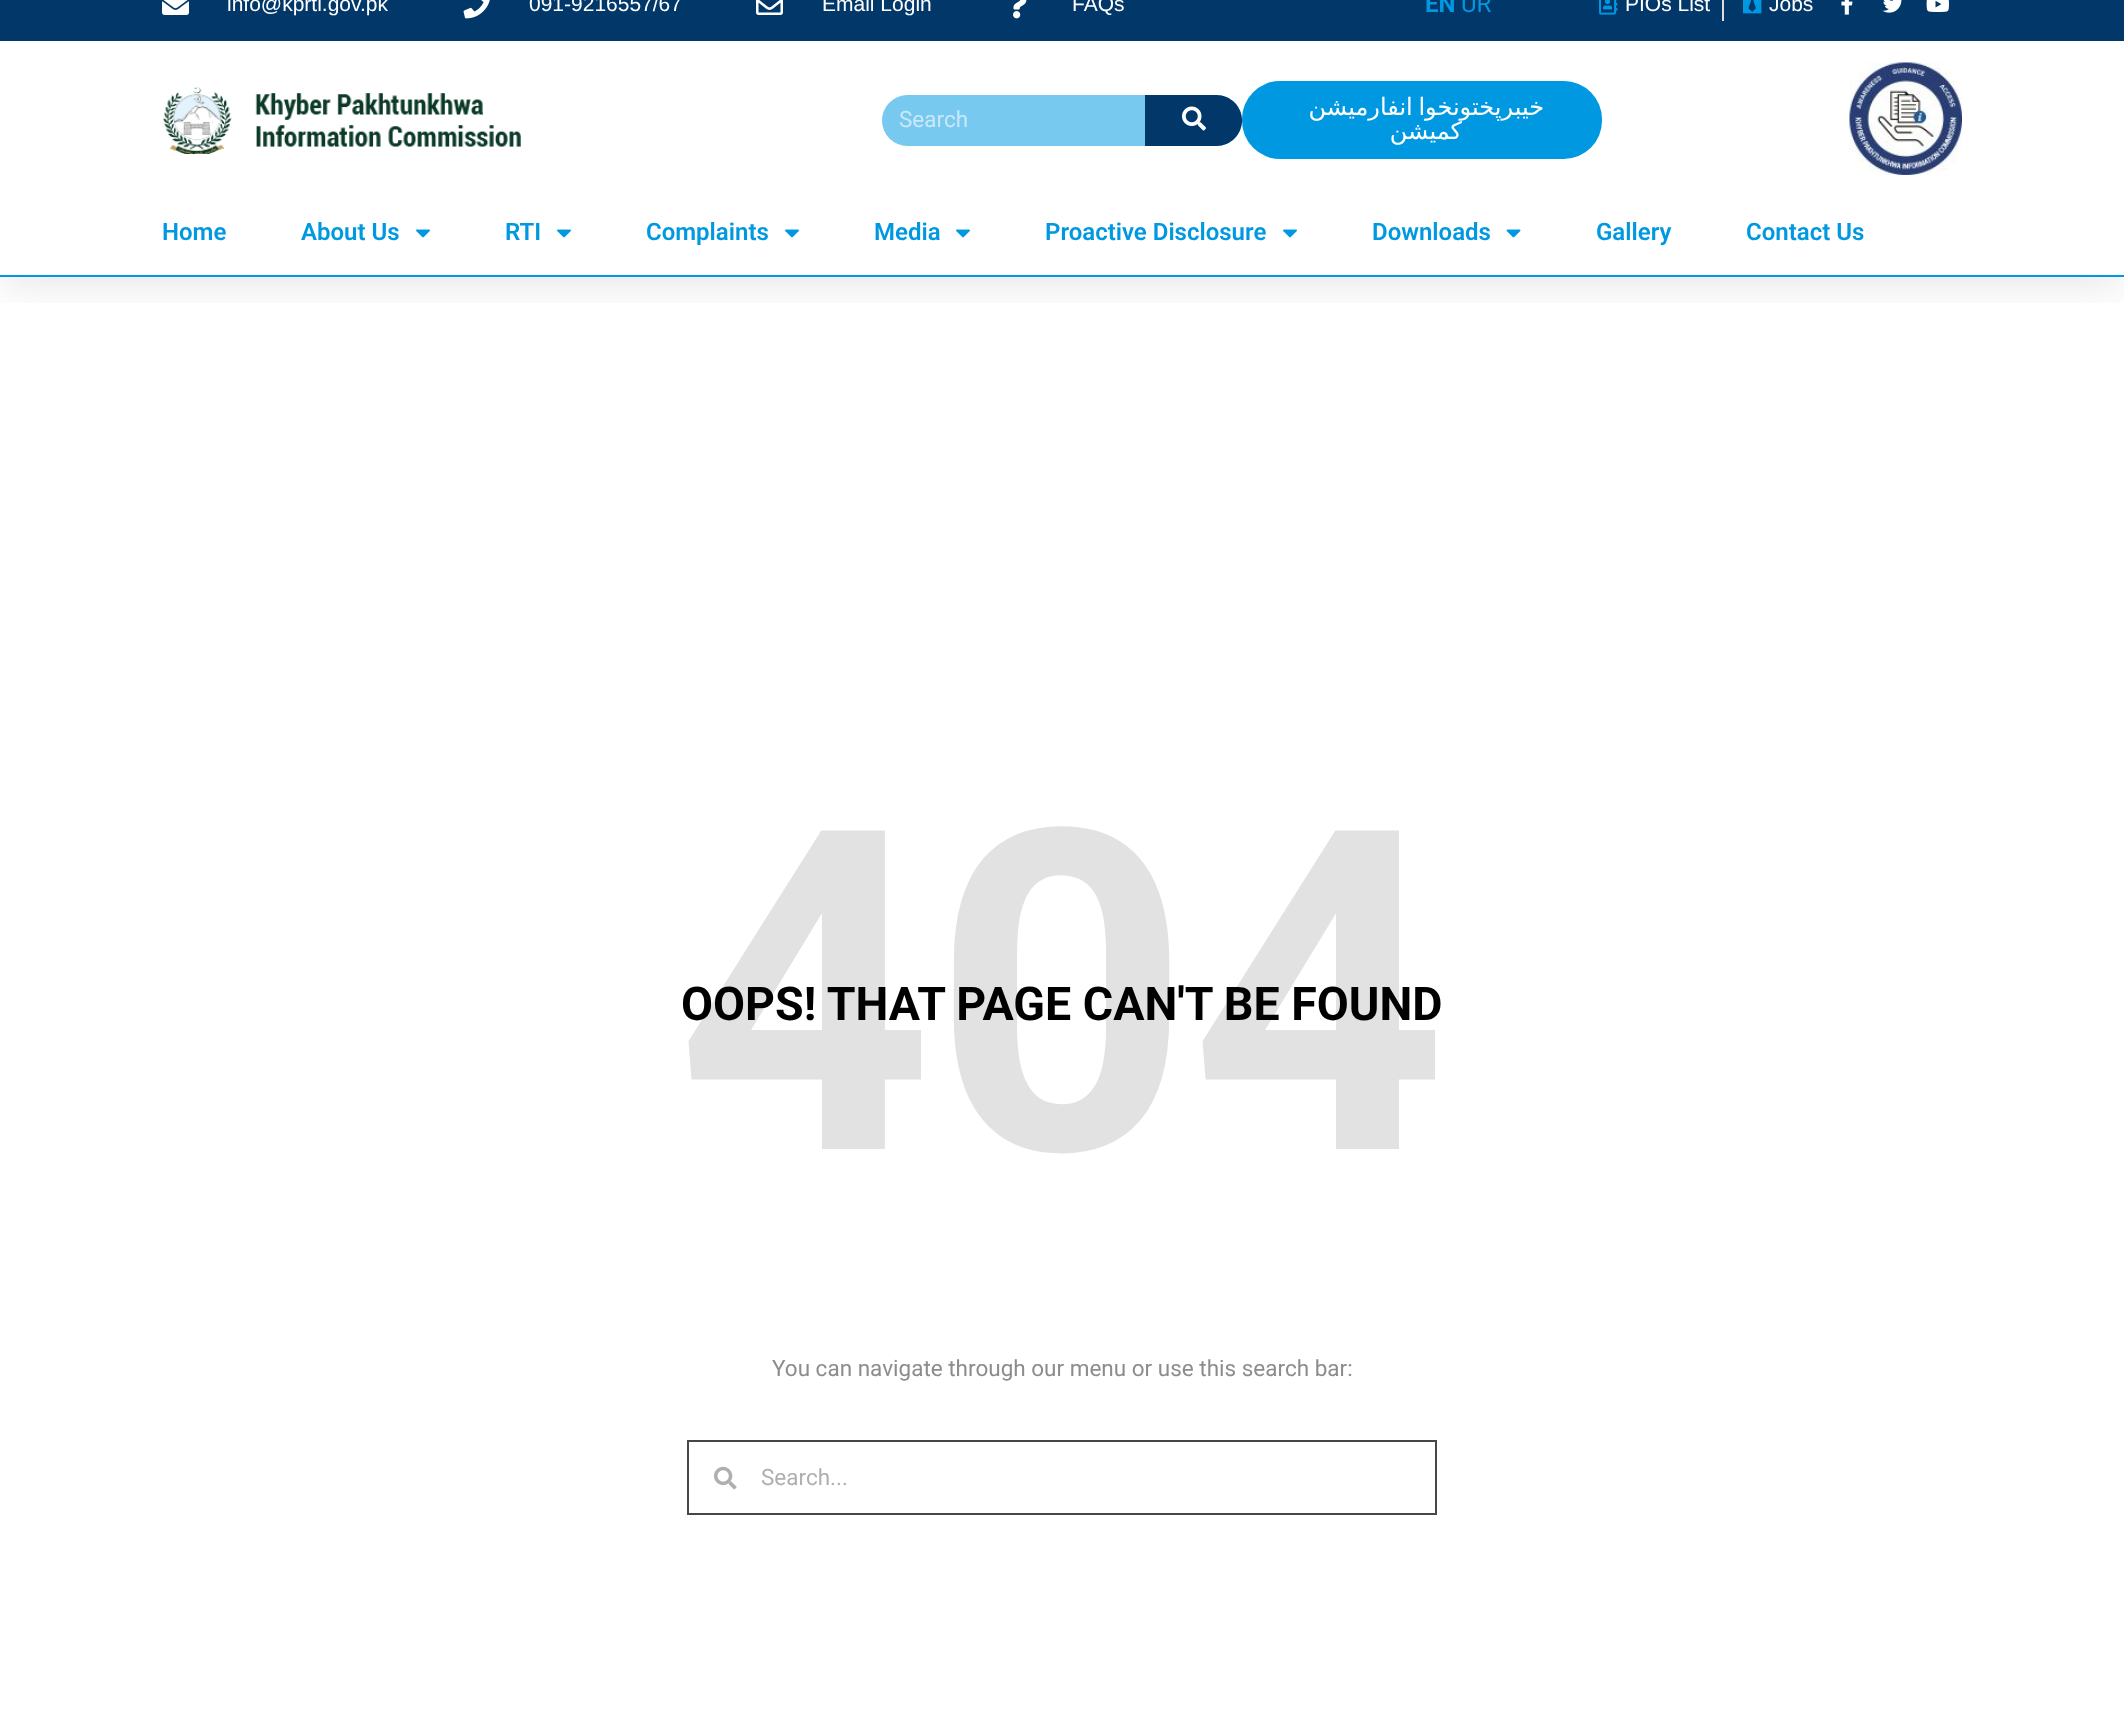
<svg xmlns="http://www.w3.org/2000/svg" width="2124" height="1735">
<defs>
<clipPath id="clip1"><rect x="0" y="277" width="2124" height="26"/></clipPath>
</defs>
<rect width="100%" height="100%" fill="#fff"/>
<g clip-path="url(#clip1)">
<rect y="-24" width="2124" height="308" fill="#0000001a" filter="blur(22.5px)"/>
</g>
<rect width="2124" height="41" fill="#013769"/>
<image x="162" y="0" width="27" height="15" href="media/1.png"/>
<text x="227" y="11" style="font-family:Liberation Sans;font-size:21px;fill:#fff">info@kprti.gov.pk</text>
<image x="463" y="0" width="27" height="19" href="media/2.png"/>
<text x="529" y="11" style="font-family:Liberation Sans;font-size:21px;fill:#fff">091-9216557/67</text>
<image x="756" y="0" width="27" height="15" href="media/3.png"/>
<text x="822" y="11" style="font-family:Liberation Sans;font-size:21px;fill:#fff">Email Login</text>
<image x="1013" y="0" width="14" height="19" href="media/4.png"/>
<text x="1072" y="11" style="font-family:Liberation Sans;font-size:21px;fill:#fff">FAQs</text>
<text x="1425" y="12" style="font-family:Roboto;font-size:24px;font-weight:bold;fill:#0099e1">EN</text>
<text x="1461" y="12" style="font-family:Roboto;font-size:24px;fill:#0099e1">UR</text>
<image x="1599" y="0" width="19" height="15" href="media/5.png"/>
<text x="1625" y="11" style="font-family:Liberation Sans;font-size:21px;fill:#fff">PIOs List</text>
<rect x="1722" width="2" height="21" fill="#ddd"/>
<image x="1743" y="0" width="19" height="14" href="media/6.png"/>
<text x="1769" y="11" style="font-family:Liberation Sans;font-size:21px;fill:#fff">Jobs</text>
<image x="1841" y="0" width="12" height="15" href="media/7.png"/>
<image x="1882" y="0" width="20" height="13" href="media/8.png"/>
<image x="1926" y="0" width="23" height="12" href="media/9.png"/>
<image x="163" y="86" width="358" height="68" href="media/10.png"/>
<rect x="882" y="95" width="360" height="51" rx="25.5" fill="#78c9ef"/>
<text x="899" y="127" style="font-family:Roboto;font-size:22.5px;fill:#c9e9f9">Search</text>
<path d="M1145 95h71.5c14 0 25.5 11.5 25.5 25.5c0 14-11.5 25.5-25.5 25.5h-71.5z" fill="#013769"/>
<image x="1182" y="106" width="24" height="25" href="media/11.png"/>
<rect x="1242" y="81" width="360" height="78" rx="38" fill="#0099e1"/>
<text x="1544" y="115" word-spacing="-2" style="font-family:DejaVu Sans;font-size:24px;direction:rtl;fill:#fff">خیبرپختونخوا انفارمیشن</text>
<text x="1462" y="139" style="font-family:DejaVu Sans;font-size:24px;direction:rtl;fill:#fff">کمیشن</text>
<image x="1849" y="62" width="113" height="113" href="media/12.png"/>
<text x="162" y="240" style="font-family:Roboto;font-size:24px;font-weight:600;fill:#0099e1">Home</text>
<text x="301" y="240" style="font-family:Roboto;font-size:24px;font-weight:600;fill:#0099e1">About Us</text>
<image x="416" y="229" width="14" height="9" href="media/13.png"/>
<text x="505" y="240" style="font-family:Roboto;font-size:24px;font-weight:600;fill:#0099e1">RTI</text>
<image x="557" y="229" width="14" height="9" href="media/13.png"/>
<text x="646" y="240" style="font-family:Roboto;font-size:24px;font-weight:600;fill:#0099e1">Complaints</text>
<image x="785" y="229" width="14" height="9" href="media/13.png"/>
<text x="874" y="240" style="font-family:Roboto;font-size:24px;font-weight:600;fill:#0099e1">Media</text>
<image x="956" y="229" width="14" height="9" href="media/13.png"/>
<text x="1045" y="240" style="font-family:Roboto;font-size:24px;font-weight:600;fill:#0099e1">Proactive Disclosure</text>
<image x="1283" y="229" width="14" height="9" href="media/13.png"/>
<text x="1372" y="240" style="font-family:Roboto;font-size:24px;font-weight:600;fill:#0099e1">Downloads</text>
<image x="1506" y="229" width="15" height="9" href="media/14.png"/>
<text x="1596" y="240" style="font-family:Roboto;font-size:24px;font-weight:600;fill:#0099e1">Gallery</text>
<text x="1746" y="240" style="font-family:Roboto;font-size:24px;font-weight:600;fill:#0099e1">Contact Us</text>
<rect y="275" width="2124" height="2" fill="#0099e1"/>
<text x="676" y="1149" style="font-family:Roboto;font-size:448px;font-weight:bold;fill:#e2e2e2">404</text>
<text x="681" y="1020" style="font-family:Roboto;font-size:46.5px;font-weight:bold;fill:#000">OOPS! THAT PAGE CAN'T BE FOUND</text>
<text x="772" y="1376" style="font-family:Roboto;font-size:22.5px;fill:#8c8c8c">You can navigate through our menu or use this search bar:</text>
<rect x="688" y="1441" width="748" height="73" fill="none" stroke="#474747" stroke-width="2"/>
<image x="714" y="1466" width="23" height="24" href="media/15.png"/>
<text x="761" y="1485" style="font-family:Roboto;font-size:22.5px;fill:#afafaf">Search...</text>
</svg>
